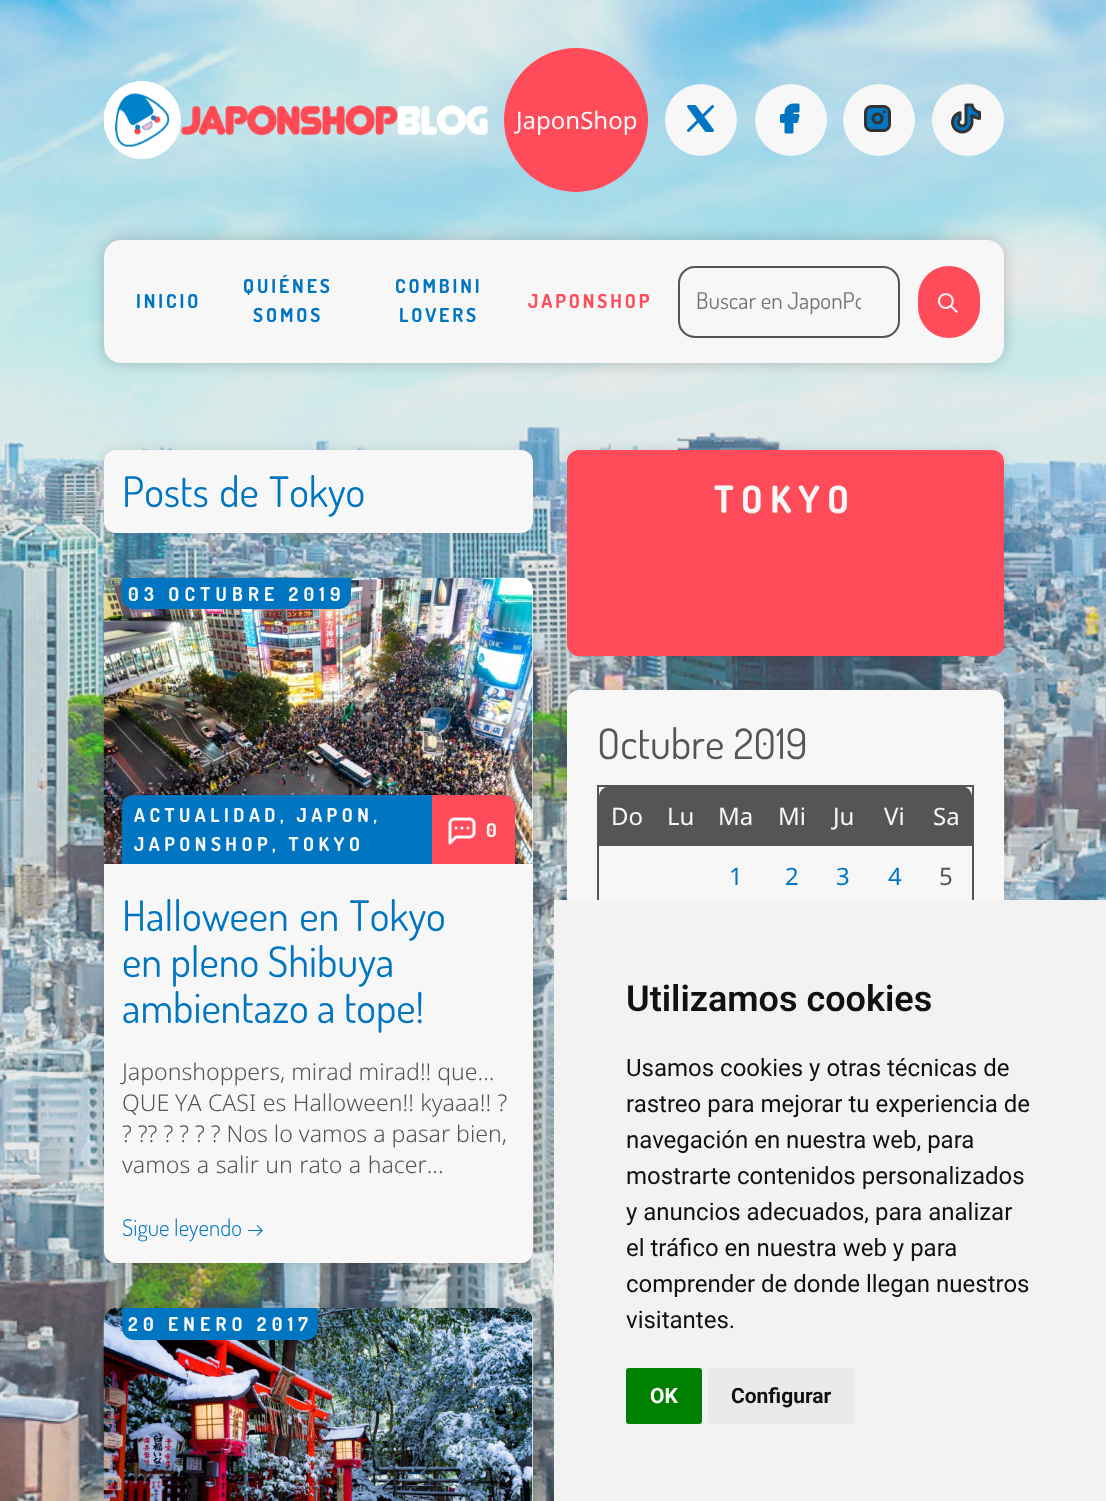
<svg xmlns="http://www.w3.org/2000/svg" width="1106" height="1501">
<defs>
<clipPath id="clip1"><rect x="696" y="285" width="165" height="30"/></clipPath>
</defs>
<rect width="100%" height="100%" fill="#fff"/>
<image x="0" y="0" width="1106" height="1501" href="media/1.png"/>
<image x="104" y="81" width="384" height="78" href="media/2.png"/>
<circle cx="576" cy="120" r="72" fill="#ff4b5a"/>
<text x="516" y="129" style="font-family:Noto Sans;font-size:24px;fill:#f7f7f7">JaponShop</text>
<circle cx="701" cy="120" r="36" fill="#f7f7f7"/>
<image x="687" y="105" width="27" height="27" href="media/3.png"/>
<circle cx="791" cy="120" r="36" fill="#f7f7f7"/>
<image x="780" y="103" width="20" height="31" href="media/4.png"/>
<circle cx="879" cy="120" r="36" fill="#f7f7f7"/>
<image x="864" y="105" width="27" height="27" href="media/5.png"/>
<circle cx="968" cy="120" r="36" fill="#f7f7f7"/>
<image x="951" y="103" width="30" height="31" href="media/6.png"/>
<rect x="104" y="240" width="900" height="123" rx="17" fill="#00000033" filter="blur(7.5px)"/>
<rect x="104" y="240" width="900" height="123" rx="17" fill="#f7f7f7"/>
<text x="136" y="308" style="font-family:Dosis;font-size:19.25px;font-weight:bold;letter-spacing:2.9px;fill:#0075c1">INICIO</text>
<text x="243" y="293" style="font-family:Dosis;font-size:19.25px;font-weight:bold;letter-spacing:2.9px;fill:#0075c1">QUIÉNES</text>
<text x="253" y="322" style="font-family:Dosis;font-size:19.25px;font-weight:bold;letter-spacing:2.9px;fill:#0075c1">SOMOS</text>
<text x="395" y="293" style="font-family:Dosis;font-size:19.25px;font-weight:bold;letter-spacing:2.9px;fill:#0075c1">COMBINI</text>
<text x="399" y="322" style="font-family:Dosis;font-size:19.25px;font-weight:bold;letter-spacing:2.9px;fill:#0075c1">LOVERS</text>
<text x="528" y="308" style="font-family:Dosis;font-size:19.25px;font-weight:bold;letter-spacing:2.9px;fill:#ff4b5a">JAPONSHOP</text>
<rect x="679" y="267" width="220" height="70" rx="16" fill="none" stroke="#555" stroke-width="2"/>
<g clip-path="url(#clip1)">
<text x="696" y="309" style="font-family:Dosis;font-size:23.1px;fill:#757575">Buscar en JaponPo</text>
</g>
<rect x="918" y="266" width="62" height="72" rx="31" fill="#ff4b5a"/>
<image x="938" y="293" width="20" height="20" href="media/7.png"/>
<rect x="104" y="450" width="429" height="83" rx="12" fill="#0000001a" filter="blur(6px)"/>
<rect x="104" y="450" width="429" height="83" rx="12" fill="#f7f7f7"/>
<text x="122" y="507" word-spacing="2" style="font-family:Dosis;font-size:42px;fill:#0075c1">Posts de Tokyo</text>
<rect x="104" y="578" width="429" height="685" rx="12" fill="#0000001a" filter="blur(6px)"/>
<rect x="104" y="578" width="429" height="685" rx="12" fill="#f7f7f7"/>
<image x="103" y="577" width="430" height="287" href="media/8.png"/>
<path d="M122 578h229v19c0 6.5-5.5 12-12 12h-205c-6.5 0-12-5.5-12-12z" fill="#0075c1"/>
<text x="128" y="601" style="font-family:Dosis;font-size:19.1px;font-weight:bold;letter-spacing:5.25px;fill:#f7f7f7">03 OCTUBRE 2019</text>
<path d="M134 795h369c6.5 0 12 5.5 12 12v57h-393v-57c0-6.5 5.5-12 12-12z" fill="#0075c1"/>
<text x="134" y="822" style="font-family:Dosis;font-size:19.1px;font-weight:bold;letter-spacing:4.5px;fill:#f7f7f7">ACTUALIDAD, JAPON,</text>
<text x="134" y="851" style="font-family:Dosis;font-size:19.1px;font-weight:bold;letter-spacing:4.5px;fill:#f7f7f7">JAPONSHOP, TOKYO</text>
<path d="M432 795h71c6.5 0 12 5.5 12 12v57h-83z" fill="#ff4b5a"/>
<image x="448" y="817" width="28" height="28" href="media/9.png"/>
<text x="486" y="837" style="font-family:Dosis;font-size:19.1px;font-weight:bold;letter-spacing:5.25px;fill:#f7f7f7">0</text>
<text x="122" y="931" word-spacing="2" style="font-family:Dosis;font-size:42px;fill:#0075c1">Halloween en Tokyo</text>
<text x="122" y="977" style="font-family:Dosis;font-size:42px;fill:#0075c1">en pleno Shibuya</text>
<text x="122" y="1023" style="font-family:Dosis;font-size:42px;fill:#0075c1">ambientazo a tope!</text>
<text x="122" y="1080" style="font-family:Noto Sans;font-size:23.1px;font-weight:300;fill:#555">Japonshoppers, mirad mirad!! que...</text>
<text x="122" y="1111" style="font-family:Noto Sans;font-size:23.1px;font-weight:300;fill:#555">QUE</text>
<text x="175" y="1111" word-spacing="0.5" style="font-family:Noto Sans;font-size:23.1px;font-weight:300;fill:#555">YA CASI es Halloween!! kyaaa!! ?</text>
<text x="122" y="1142" style="font-family:Noto Sans;font-size:23.1px;font-weight:300;fill:#555">? ?? ? ? ? ? Nos lo vamos a pasar bien,</text>
<text x="122" y="1173" word-spacing="0.5" style="font-family:Noto Sans;font-size:23.1px;font-weight:300;fill:#555">vamos a salir un rato a hacer...</text>
<text x="122" y="1236" style="font-family:Dosis;font-size:23.1px;font-weight:300;fill:#0075c1">Sigue leyendo →</text>
<rect x="104" y="1308" width="429" height="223" rx="12" fill="#0000001a" filter="blur(6px)"/>
<rect x="104" y="1308" width="429" height="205" rx="12" fill="#f7f7f7"/>
<image x="103" y="1308" width="430" height="193" href="media/10.png"/>
<path d="M122 1308h196v20c0 6.5-5.5 12-12 12h-172c-6.5 0-12-5.5-12-12z" fill="#0075c1"/>
<text x="128" y="1331" style="font-family:Dosis;font-size:19.1px;font-weight:bold;letter-spacing:5.25px;fill:#f7f7f7">20 ENERO 2017</text>
<rect x="567" y="450" width="437" height="206" rx="12" fill="#0000001a" filter="blur(6px)"/>
<rect x="567" y="450" width="437" height="206" rx="12" fill="#ff4b5a"/>
<text x="714" y="513" style="font-family:Dosis;font-size:37.5px;font-weight:bold;letter-spacing:7.5px;fill:#f7f7f7">TOKYO</text>
<rect x="567" y="690" width="437" height="548" rx="12" fill="#0000001a" filter="blur(6px)"/>
<rect x="567" y="690" width="437" height="548" rx="12" fill="#f7f7f7"/>
<text x="597" y="759" word-spacing="1" style="font-family:Dosis;font-size:42px;fill:#555">Octubre 2019</text>
<path d="M610 786h351c6 0 11 5 11 11v49h-373v-49c0-6 5-11 11-11z" fill="#555"/>
<rect x="597" y="785" width="377" height="2" fill="#555"/>
<rect x="972" y="785" width="2" height="115" fill="#555"/>
<rect x="597" y="785" width="2" height="115" fill="#555"/>
<text x="611" y="825" style="font-family:Noto Sans;font-size:24px;fill:#f7f7f7">Do</text>
<text x="667" y="825" style="font-family:Noto Sans;font-size:24px;fill:#f7f7f7">Lu</text>
<text x="718" y="825" style="font-family:Noto Sans;font-size:24px;fill:#f7f7f7">Ma</text>
<text x="778" y="825" style="font-family:Noto Sans;font-size:24px;fill:#f7f7f7">Mi</text>
<text x="833" y="825" style="font-family:Noto Sans;font-size:24px;fill:#f7f7f7">Ju</text>
<text x="884" y="825" style="font-family:Noto Sans;font-size:24px;fill:#f7f7f7">Vi</text>
<text x="933" y="825" style="font-family:Noto Sans;font-size:24px;fill:#f7f7f7">Sa</text>
<text x="729" y="885" style="font-family:Noto Sans;font-size:24px;fill:#0075c1">1</text>
<text x="785" y="885" style="font-family:Noto Sans;font-size:24px;fill:#0075c1">2</text>
<text x="836" y="885" style="font-family:Noto Sans;font-size:24px;fill:#0075c1">3</text>
<text x="888" y="885" style="font-family:Noto Sans;font-size:24px;fill:#0075c1">4</text>
<text x="939" y="885" style="font-family:Noto Sans;font-size:24px;fill:#555">5</text>
<rect x="554" y="900" width="552" height="601" fill="#f2f2f2"/>
<text x="626" y="1011" style="font-family:Roboto;font-size:36px;font-weight:600;fill:#111">Utilizamos cookies</text>
<text x="626" y="1076" style="font-family:Roboto;font-size:24px;fill:#111">Usamos cookies y otras técnicas de</text>
<text x="626" y="1112" style="font-family:Roboto;font-size:24px;fill:#111">rastreo para mejorar tu experiencia de</text>
<text x="626" y="1148" style="font-family:Roboto;font-size:24px;fill:#111">navegación en nuestra web, para</text>
<text x="626" y="1184" style="font-family:Roboto;font-size:24px;fill:#111">mostrarte contenidos personalizados</text>
<text x="626" y="1220" style="font-family:Roboto;font-size:24px;fill:#111">y anuncios adecuados, para analizar</text>
<text x="626" y="1256" style="font-family:Roboto;font-size:24px;fill:#111">el tráfico en nuestra web y para</text>
<text x="626" y="1292" style="font-family:Roboto;font-size:24px;fill:#111">comprender de donde llegan nuestros</text>
<text x="626" y="1328" style="font-family:Roboto;font-size:24px;fill:#111">visitantes.</text>
<rect x="626" y="1368" width="76" height="56" rx="3" fill="#008000"/>
<text x="650" y="1403" style="font-family:Roboto;font-size:21px;font-weight:bold;fill:#fff">OK</text>
<rect x="708" y="1368" width="147" height="56" rx="3" fill="#eaeaea"/>
<text x="731" y="1403" style="font-family:Roboto;font-size:21px;font-weight:bold;fill:#111">Configurar</text>
</svg>
